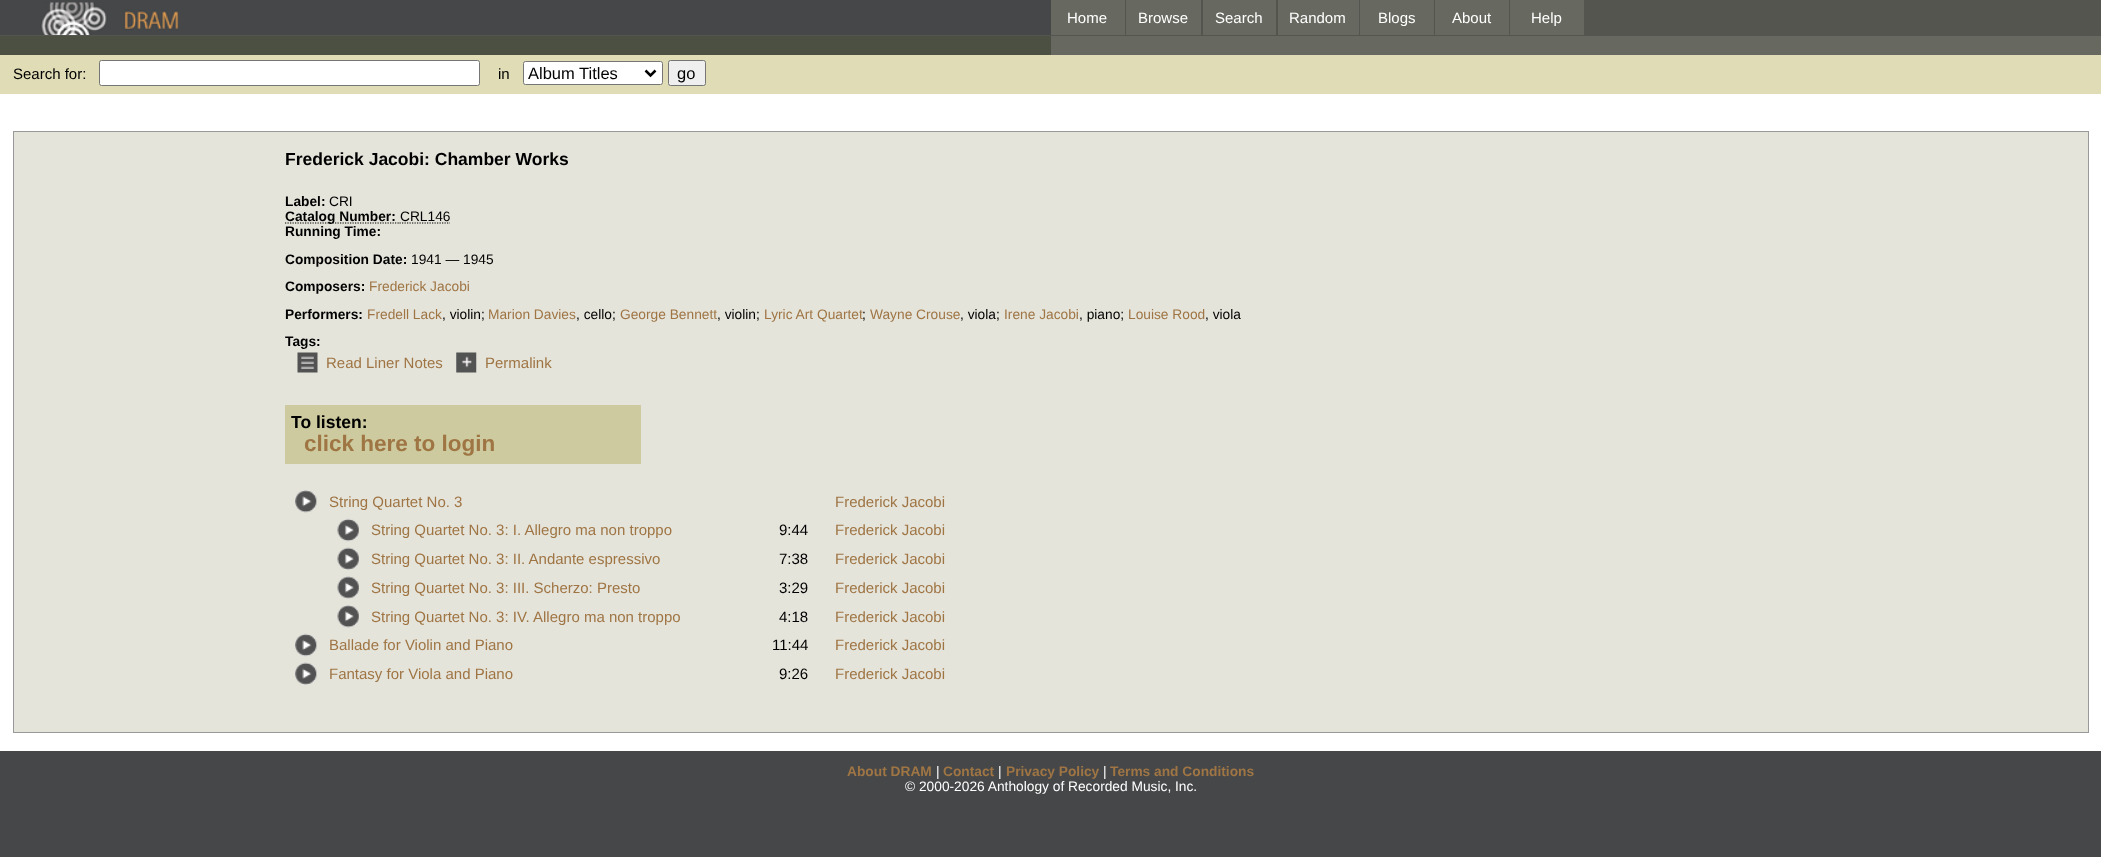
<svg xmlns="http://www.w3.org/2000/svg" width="2101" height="857">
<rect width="100%" height="100%" fill="#464749"/>
<image x="40" y="2" width="139" height="33" href="media/1.png"/>
<rect x="1125" width="976" height="35" fill="#53554e"/>
<rect x="1051" width="74" height="35" fill="#67685f"/>
<text x="1067" y="23" style="font-family:Liberation Sans;font-size:15px;fill:#fff">Home</text>
<rect x="1126" width="75" height="35" fill="#67685f"/>
<text x="1138" y="23" style="font-family:Liberation Sans;font-size:15px;fill:#fff">Browse</text>
<rect x="1203" width="73" height="35" fill="#67685f"/>
<text x="1215" y="23" style="font-family:Liberation Sans;font-size:15px;fill:#fff">Search</text>
<rect x="1278" width="81" height="35" fill="#67685f"/>
<text x="1289" y="23" style="font-family:Liberation Sans;font-size:15px;fill:#fff">Random</text>
<rect x="1360" width="74" height="35" fill="#67685f"/>
<text x="1378" y="23" style="font-family:Liberation Sans;font-size:15px;fill:#fff">Blogs</text>
<rect x="1435" width="74" height="35" fill="#67685f"/>
<text x="1452" y="23" style="font-family:Liberation Sans;font-size:15px;fill:#fff">About</text>
<rect x="1510" width="74" height="35" fill="#67685f"/>
<text x="1531" y="23" style="font-family:Liberation Sans;font-size:15px;fill:#fff">Help</text>
<rect x="1051" y="36" width="1050" height="19" fill="#67685f"/>
<rect y="35" width="2101" height="1" fill="#53554e"/>
<rect y="36" width="1051" height="19" fill="#4b5042"/>
<rect y="55" width="2101" height="39" fill="#dfdcb6"/>
<text x="13" y="79" style="font-family:Liberation Sans;font-size:15px;fill:#000">Search for:</text>
<rect x="99.5" y="60.5" width="380" height="25" rx="2" fill="#fff" stroke="#767676"/>
<text x="498" y="79" style="font-family:Liberation Sans;font-size:15px;fill:#000">in</text>
<rect x="523.5" y="61.5" width="139" height="23" rx="2" fill="#fff" stroke="#767676"/>
<path d="M645.5 70.5l5 5l5-5" fill="none" stroke="#000" stroke-width="2.5"/>
<text x="528" y="79" style="font-family:Liberation Sans;font-size:16.5px;fill:#000">Album Titles</text>
<rect x="668.5" y="60.5" width="37" height="25" rx="2" fill="#efefef" stroke="#767676"/>
<text x="677" y="79" style="font-family:Liberation Sans;font-size:16.5px;fill:#000">go</text>
<rect y="94" width="2101" height="657" fill="#fff"/>
<rect x="13.5" y="131.5" width="2075" height="601" fill="#e5e4db" stroke="#999"/>
<text x="285" y="165" style="font-family:Liberation Sans;font-size:17.5px;font-weight:bold;fill:#000">Frederick Jacobi: Chamber Works</text>
<text x="285" y="206" style="font-family:Liberation Sans;font-size:13.75px;font-weight:bold;fill:#000">Label:</text>
<text x="329" y="206" style="font-family:Liberation Sans;font-size:13.75px;fill:#000">CRI</text>
<path d="M285 223h114.5" fill="none" stroke="#000" stroke-width="1.2" stroke-dasharray="1.25 1.25"/>
<text x="285" y="221" style="font-family:Liberation Sans;font-size:13.75px;font-weight:bold;fill:#000">Catalog Number:</text>
<text x="400" y="221" style="font-family:Liberation Sans;font-size:13.75px;fill:#000">CRL146</text>
<path d="M399.5 223h50.5" fill="none" stroke="#000" stroke-width="1.2" stroke-dasharray="1.25 1.25"/>
<text x="285" y="236" style="font-family:Liberation Sans;font-size:13.75px;font-weight:bold;fill:#000">Running Time:</text>
<text x="285" y="264" style="font-family:Liberation Sans;font-size:13.75px;font-weight:bold;fill:#000">Composition Date:</text>
<text x="411" y="264" style="font-family:Liberation Sans;font-size:13.75px;fill:#000">1941 — 1945</text>
<text x="285" y="291" style="font-family:Liberation Sans;font-size:13.75px;font-weight:bold;fill:#000">Composers:</text>
<text x="369" y="291" style="font-family:Liberation Sans;font-size:13.75px;fill:#9f7544">Frederick Jacobi</text>
<text x="285" y="319" style="font-family:Liberation Sans;font-size:13.75px;font-weight:bold;fill:#000">Performers:</text>
<text x="367" y="319" style="font-family:Liberation Sans;font-size:13.75px;fill:#9f7544">Fredell Lack</text>
<text x="442" y="319" style="font-family:Liberation Sans;font-size:13.75px;fill:#000">, violin;</text>
<text x="488" y="319" style="font-family:Liberation Sans;font-size:13.75px;fill:#9f7544">Marion Davies</text>
<text x="576" y="319" style="font-family:Liberation Sans;font-size:13.75px;fill:#000">, cello;</text>
<text x="620" y="319" style="font-family:Liberation Sans;font-size:13.75px;fill:#9f7544">George Bennett</text>
<text x="717" y="319" style="font-family:Liberation Sans;font-size:13.75px;fill:#000">, violin;</text>
<text x="764" y="319" style="font-family:Liberation Sans;font-size:13.75px;fill:#9f7544">Lyric Art Quartet</text>
<text x="862" y="319" style="font-family:Liberation Sans;font-size:13.75px;fill:#000">;</text>
<text x="870" y="319" style="font-family:Liberation Sans;font-size:13.75px;fill:#9f7544">Wayne Crouse</text>
<text x="960" y="319" style="font-family:Liberation Sans;font-size:13.75px;fill:#000">, viola;</text>
<text x="1004" y="319" style="font-family:Liberation Sans;font-size:13.75px;fill:#9f7544">Irene Jacobi</text>
<text x="1079" y="319" style="font-family:Liberation Sans;font-size:13.75px;fill:#000">, piano;</text>
<text x="1128" y="319" style="font-family:Liberation Sans;font-size:13.75px;fill:#9f7544">Louise Rood</text>
<text x="1205" y="319" style="font-family:Liberation Sans;font-size:13.75px;fill:#000">, viola</text>
<text x="285" y="346" style="font-family:Liberation Sans;font-size:13.75px;font-weight:bold;fill:#000">Tags:</text>
<image x="297" y="352" width="21" height="21" href="media/2.png"/>
<text x="326" y="368" style="font-family:Liberation Sans;font-size:15px;fill:#9f7544">Read Liner Notes</text>
<image x="456" y="352" width="21" height="21" href="media/3.png"/>
<text x="485" y="368" style="font-family:Liberation Sans;font-size:15px;fill:#9f7544">Permalink</text>
<rect x="285" y="405" width="356" height="59" fill="#ccca9e"/>
<text x="291" y="428" style="font-family:Liberation Sans;font-size:17.5px;font-weight:bold;fill:#000">To listen:</text>
<text x="304" y="451" style="font-family:Liberation Sans;font-size:22.5px;font-weight:bold;fill:#9f7544">click here to login</text>
<image x="295" y="490" width="22" height="23" href="media/4.png"/>
<text x="329" y="507" style="font-family:Liberation Sans;font-size:15px;fill:#9f7544">String Quartet No. 3</text>
<text x="835" y="507" style="font-family:Liberation Sans;font-size:15px;fill:#9f7544">Frederick Jacobi</text>
<image x="337" y="518" width="22" height="24" href="media/5.png"/>
<text x="371" y="535" style="font-family:Liberation Sans;font-size:15px;fill:#9f7544">String Quartet No. 3: I. Allegro ma non troppo</text>
<text x="779" y="535" style="font-family:Liberation Sans;font-size:15px;fill:#000">9:44</text>
<text x="835" y="535" style="font-family:Liberation Sans;font-size:15px;fill:#9f7544">Frederick Jacobi</text>
<image x="337" y="547" width="22" height="23" href="media/6.png"/>
<text x="371" y="564" style="font-family:Liberation Sans;font-size:15px;fill:#9f7544">String Quartet No. 3: II. Andante espressivo</text>
<text x="779" y="564" style="font-family:Liberation Sans;font-size:15px;fill:#000">7:38</text>
<text x="835" y="564" style="font-family:Liberation Sans;font-size:15px;fill:#9f7544">Frederick Jacobi</text>
<image x="337" y="576" width="22" height="23" href="media/7.png"/>
<text x="371" y="593" style="font-family:Liberation Sans;font-size:15px;fill:#9f7544">String Quartet No. 3: III. Scherzo: Presto</text>
<text x="779" y="593" style="font-family:Liberation Sans;font-size:15px;fill:#000">3:29</text>
<text x="835" y="593" style="font-family:Liberation Sans;font-size:15px;fill:#9f7544">Frederick Jacobi</text>
<image x="337" y="605" width="22" height="23" href="media/8.png"/>
<text x="371" y="622" style="font-family:Liberation Sans;font-size:15px;fill:#9f7544">String Quartet No. 3: IV. Allegro ma non troppo</text>
<text x="779" y="622" style="font-family:Liberation Sans;font-size:15px;fill:#000">4:18</text>
<text x="835" y="622" style="font-family:Liberation Sans;font-size:15px;fill:#9f7544">Frederick Jacobi</text>
<image x="295" y="633" width="22" height="24" href="media/9.png"/>
<text x="329" y="650" style="font-family:Liberation Sans;font-size:15px;fill:#9f7544">Ballade for Violin and Piano</text>
<text x="772" y="650" style="font-family:Liberation Sans;font-size:15px;fill:#000">11:44</text>
<text x="835" y="650" style="font-family:Liberation Sans;font-size:15px;fill:#9f7544">Frederick Jacobi</text>
<image x="295" y="662" width="22" height="23" href="media/10.png"/>
<text x="329" y="679" style="font-family:Liberation Sans;font-size:15px;fill:#9f7544">Fantasy for Viola and Piano</text>
<text x="779" y="679" style="font-family:Liberation Sans;font-size:15px;fill:#000">9:26</text>
<text x="835" y="679" style="font-family:Liberation Sans;font-size:15px;fill:#9f7544">Frederick Jacobi</text>
<text x="847" y="776" style="font-family:Liberation Sans;font-size:13.75px;font-weight:bold;fill:#9f7544">About DRAM</text>
<text x="936" y="776" style="font-family:Liberation Sans;font-size:13.75px;fill:#fff">|</text>
<text x="943" y="776" style="font-family:Liberation Sans;font-size:13.75px;font-weight:bold;fill:#9f7544">Contact</text>
<text x="998" y="776" style="font-family:Liberation Sans;font-size:13.75px;fill:#fff">|</text>
<text x="1006" y="776" style="font-family:Liberation Sans;font-size:13.75px;font-weight:bold;fill:#9f7544">Privacy Policy</text>
<text x="1103" y="776" style="font-family:Liberation Sans;font-size:13.75px;fill:#fff">|</text>
<text x="1110" y="776" style="font-family:Liberation Sans;font-size:13.75px;font-weight:bold;fill:#9f7544">Terms and Conditions</text>
<text x="905" y="791" style="font-family:Liberation Sans;font-size:13.75px;fill:#fff">© 2000-2026 Anthology of Recorded Music, Inc.</text>
</svg>
